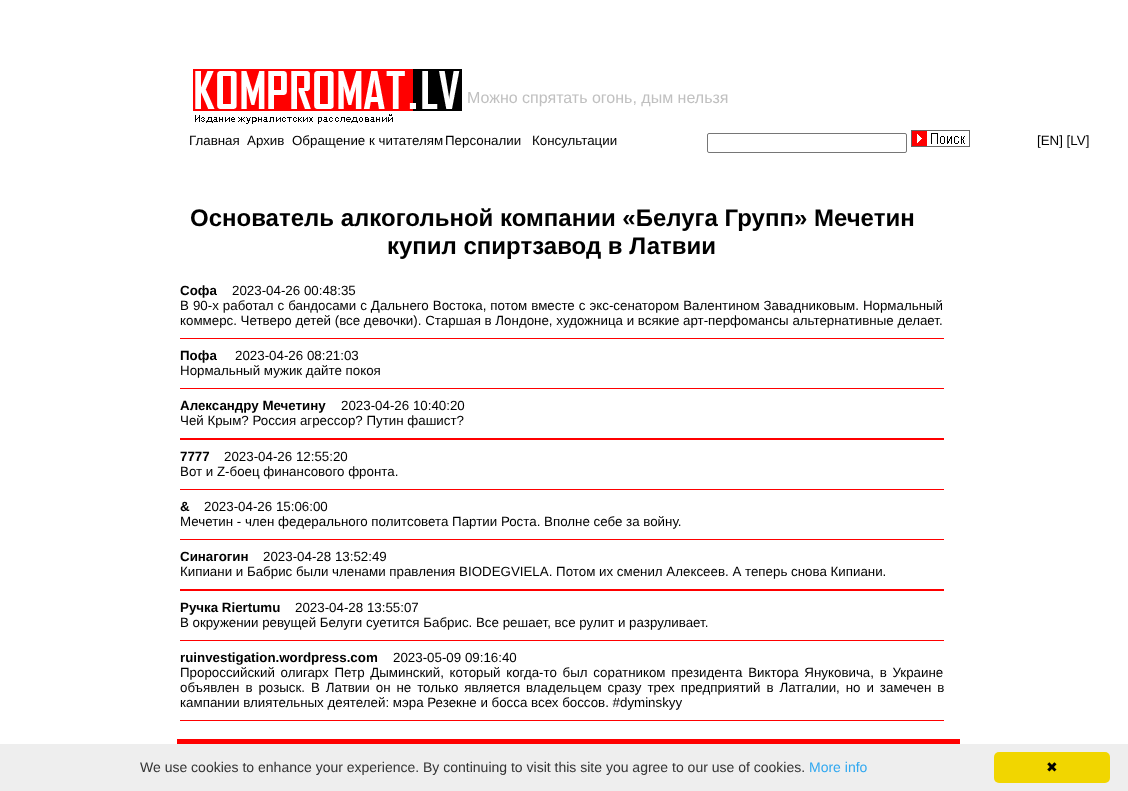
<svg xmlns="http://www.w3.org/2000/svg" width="1128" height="791">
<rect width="100%" height="100%" fill="#fff"/>
<image x="193" y="69" width="269" height="55" href="media/1.png"/>
<text x="467" y="103" style="font-family:Liberation Sans;font-size:16px;fill:#c0c0c0">Можно спрятать огонь, дым нельзя</text>
<text x="189" y="145" style="font-family:Liberation Sans;font-size:13.33px;fill:#000">Главная</text>
<text x="247" y="145" style="font-family:Liberation Sans;font-size:13.33px;fill:#000">Архив</text>
<text x="292" y="145" style="font-family:Liberation Sans;font-size:13.33px;fill:#000">Обращение к читателям</text>
<text x="445" y="145" style="font-family:Liberation Sans;font-size:13.33px;fill:#000">Персоналии</text>
<text x="532" y="145" style="font-family:Liberation Sans;font-size:13.33px;fill:#000">Консультации</text>
<rect x="707.5" y="133.5" width="199" height="19" rx="1.5" fill="none" stroke="#767676"/>
<image x="911" y="130" width="59" height="17" href="media/2.png"/>
<text x="1037" y="145" style="font-family:Liberation Sans;font-size:13.33px;fill:#000">[EN] [LV]</text>
<text x="190" y="226" style="font-family:Liberation Sans;font-size:24px;font-weight:bold;fill:#000">Основатель алкогольной компании «Белуга Групп» Мечетин</text>
<text x="387" y="254" style="font-family:Liberation Sans;font-size:24px;font-weight:bold;fill:#000">купил спиртзавод в Латвии</text>
<text x="180" y="295" style="font-family:Liberation Sans;font-size:13.33px;font-weight:bold;fill:#000">Софа</text>
<text x="232" y="295" style="font-family:Liberation Sans;font-size:13.33px;fill:#000">2023-04-26 00:48:35</text>
<text x="180" y="310" word-spacing="0.3" style="font-family:Liberation Sans;font-size:13.33px;fill:#000">В 90-х работал с бандосами с Дальнего Востока, потом вместе с экс-сенатором Валентином Завадниковым. Нормальный</text>
<text x="180" y="325" style="font-family:Liberation Sans;font-size:13.33px;fill:#000">коммерс. Четверо детей (все девочки). Старшая в Лондоне, художница и всякие арт-перфомансы альтернативные делает.</text>
<rect x="180" y="338" width="764" height="1" fill="#f00"/>
<text x="180" y="360" style="font-family:Liberation Sans;font-size:13.33px;font-weight:bold;fill:#000">Пофа</text>
<text x="235" y="360" style="font-family:Liberation Sans;font-size:13.33px;fill:#000">2023-04-26 08:21:03</text>
<text x="180" y="375" style="font-family:Liberation Sans;font-size:13.33px;fill:#000">Нормальный мужик дайте покоя</text>
<rect x="180" y="388" width="764" height="1" fill="#f00"/>
<text x="180" y="410" style="font-family:Liberation Sans;font-size:13.33px;font-weight:bold;fill:#000">Александру Мечетину</text>
<text x="341" y="410" style="font-family:Liberation Sans;font-size:13.33px;fill:#000">2023-04-26 10:40:20</text>
<text x="180" y="425" style="font-family:Liberation Sans;font-size:13.33px;fill:#000">Чей Крым? Россия агрессор? Путин фашист?</text>
<rect x="180" y="438" width="764" height="2" fill="#f00"/>
<text x="180" y="461" style="font-family:Liberation Sans;font-size:13.33px;font-weight:bold;fill:#000">7777</text>
<text x="224" y="461" style="font-family:Liberation Sans;font-size:13.33px;fill:#000">2023-04-26 12:55:20</text>
<text x="180" y="476" style="font-family:Liberation Sans;font-size:13.33px;fill:#000">Вот и Z-боец финансового фронта.</text>
<rect x="180" y="489" width="764" height="1" fill="#f00"/>
<text x="180" y="511" style="font-family:Liberation Sans;font-size:13.33px;font-weight:bold;fill:#000">&amp;</text>
<text x="204" y="511" style="font-family:Liberation Sans;font-size:13.33px;fill:#000">2023-04-26 15:06:00</text>
<text x="180" y="526" style="font-family:Liberation Sans;font-size:13.33px;fill:#000">Мечетин - член федерального политсовета Партии Роста. Вполне себе за войну.</text>
<rect x="180" y="539" width="764" height="1" fill="#f00"/>
<text x="180" y="561" style="font-family:Liberation Sans;font-size:13.33px;font-weight:bold;fill:#000">Синагогин</text>
<text x="263" y="561" style="font-family:Liberation Sans;font-size:13.33px;fill:#000">2023-04-28 13:52:49</text>
<text x="180" y="576" style="font-family:Liberation Sans;font-size:13.33px;fill:#000">Кипиани и Бабрис были членами правления BIODEGVIELA. Потом их сменил Алексеев. А теперь снова Кипиани.</text>
<rect x="180" y="589" width="764" height="2" fill="#f00"/>
<text x="180" y="612" style="font-family:Liberation Sans;font-size:13.33px;font-weight:bold;fill:#000">Ручка Riertumu</text>
<text x="295" y="612" style="font-family:Liberation Sans;font-size:13.33px;fill:#000">2023-04-28 13:55:07</text>
<text x="180" y="627" style="font-family:Liberation Sans;font-size:13.33px;fill:#000">В окружении ревущей Белуги суетится Бабрис. Все решает, все рулит и разруливает.</text>
<rect x="180" y="640" width="764" height="1" fill="#f00"/>
<text x="180" y="662" style="font-family:Liberation Sans;font-size:13.33px;font-weight:bold;fill:#000">ruinvestigation.wordpress.com</text>
<text x="393" y="662" style="font-family:Liberation Sans;font-size:13.33px;fill:#000">2023-05-09 09:16:40</text>
<text x="180" y="677" word-spacing="2" style="font-family:Liberation Sans;font-size:13.33px;fill:#000">Пророссийский олигарх Петр Дыминский, который когда-то был соратником президента Виктора Януковича, в Украине</text>
<text x="180" y="692" word-spacing="2.25" style="font-family:Liberation Sans;font-size:13.33px;fill:#000">объявлен в розыск. В Латвии он не только является владельцем сразу трех предприятий в Латгалии, но и замечен в</text>
<text x="180" y="707" style="font-family:Liberation Sans;font-size:13.33px;fill:#000">кампании влиятельных деятелей: мэра Резекне и босса всех боссов. #dyminskyy</text>
<rect x="180" y="720" width="764" height="1" fill="#f00"/>
<rect x="177" y="739" width="783" height="5" fill="#f00"/>
<rect y="744" width="1128" height="47" fill="#eee"/>
<text x="140" y="772" style="font-family:Liberation Sans;font-size:14px;fill:#333">We use cookies to enhance your experience. By continuing to visit this site you agree to our use of cookies.</text>
<text x="809" y="772" style="font-family:Liberation Sans;font-size:14px;fill:#31a8f0">More info</text>
<rect x="994" y="752" width="116" height="31" rx="5" fill="#f1d600"/>
<text x="1046" y="772" style="font-family:DejaVu Sans;font-size:14px;fill:#000">✖</text>
</svg>
